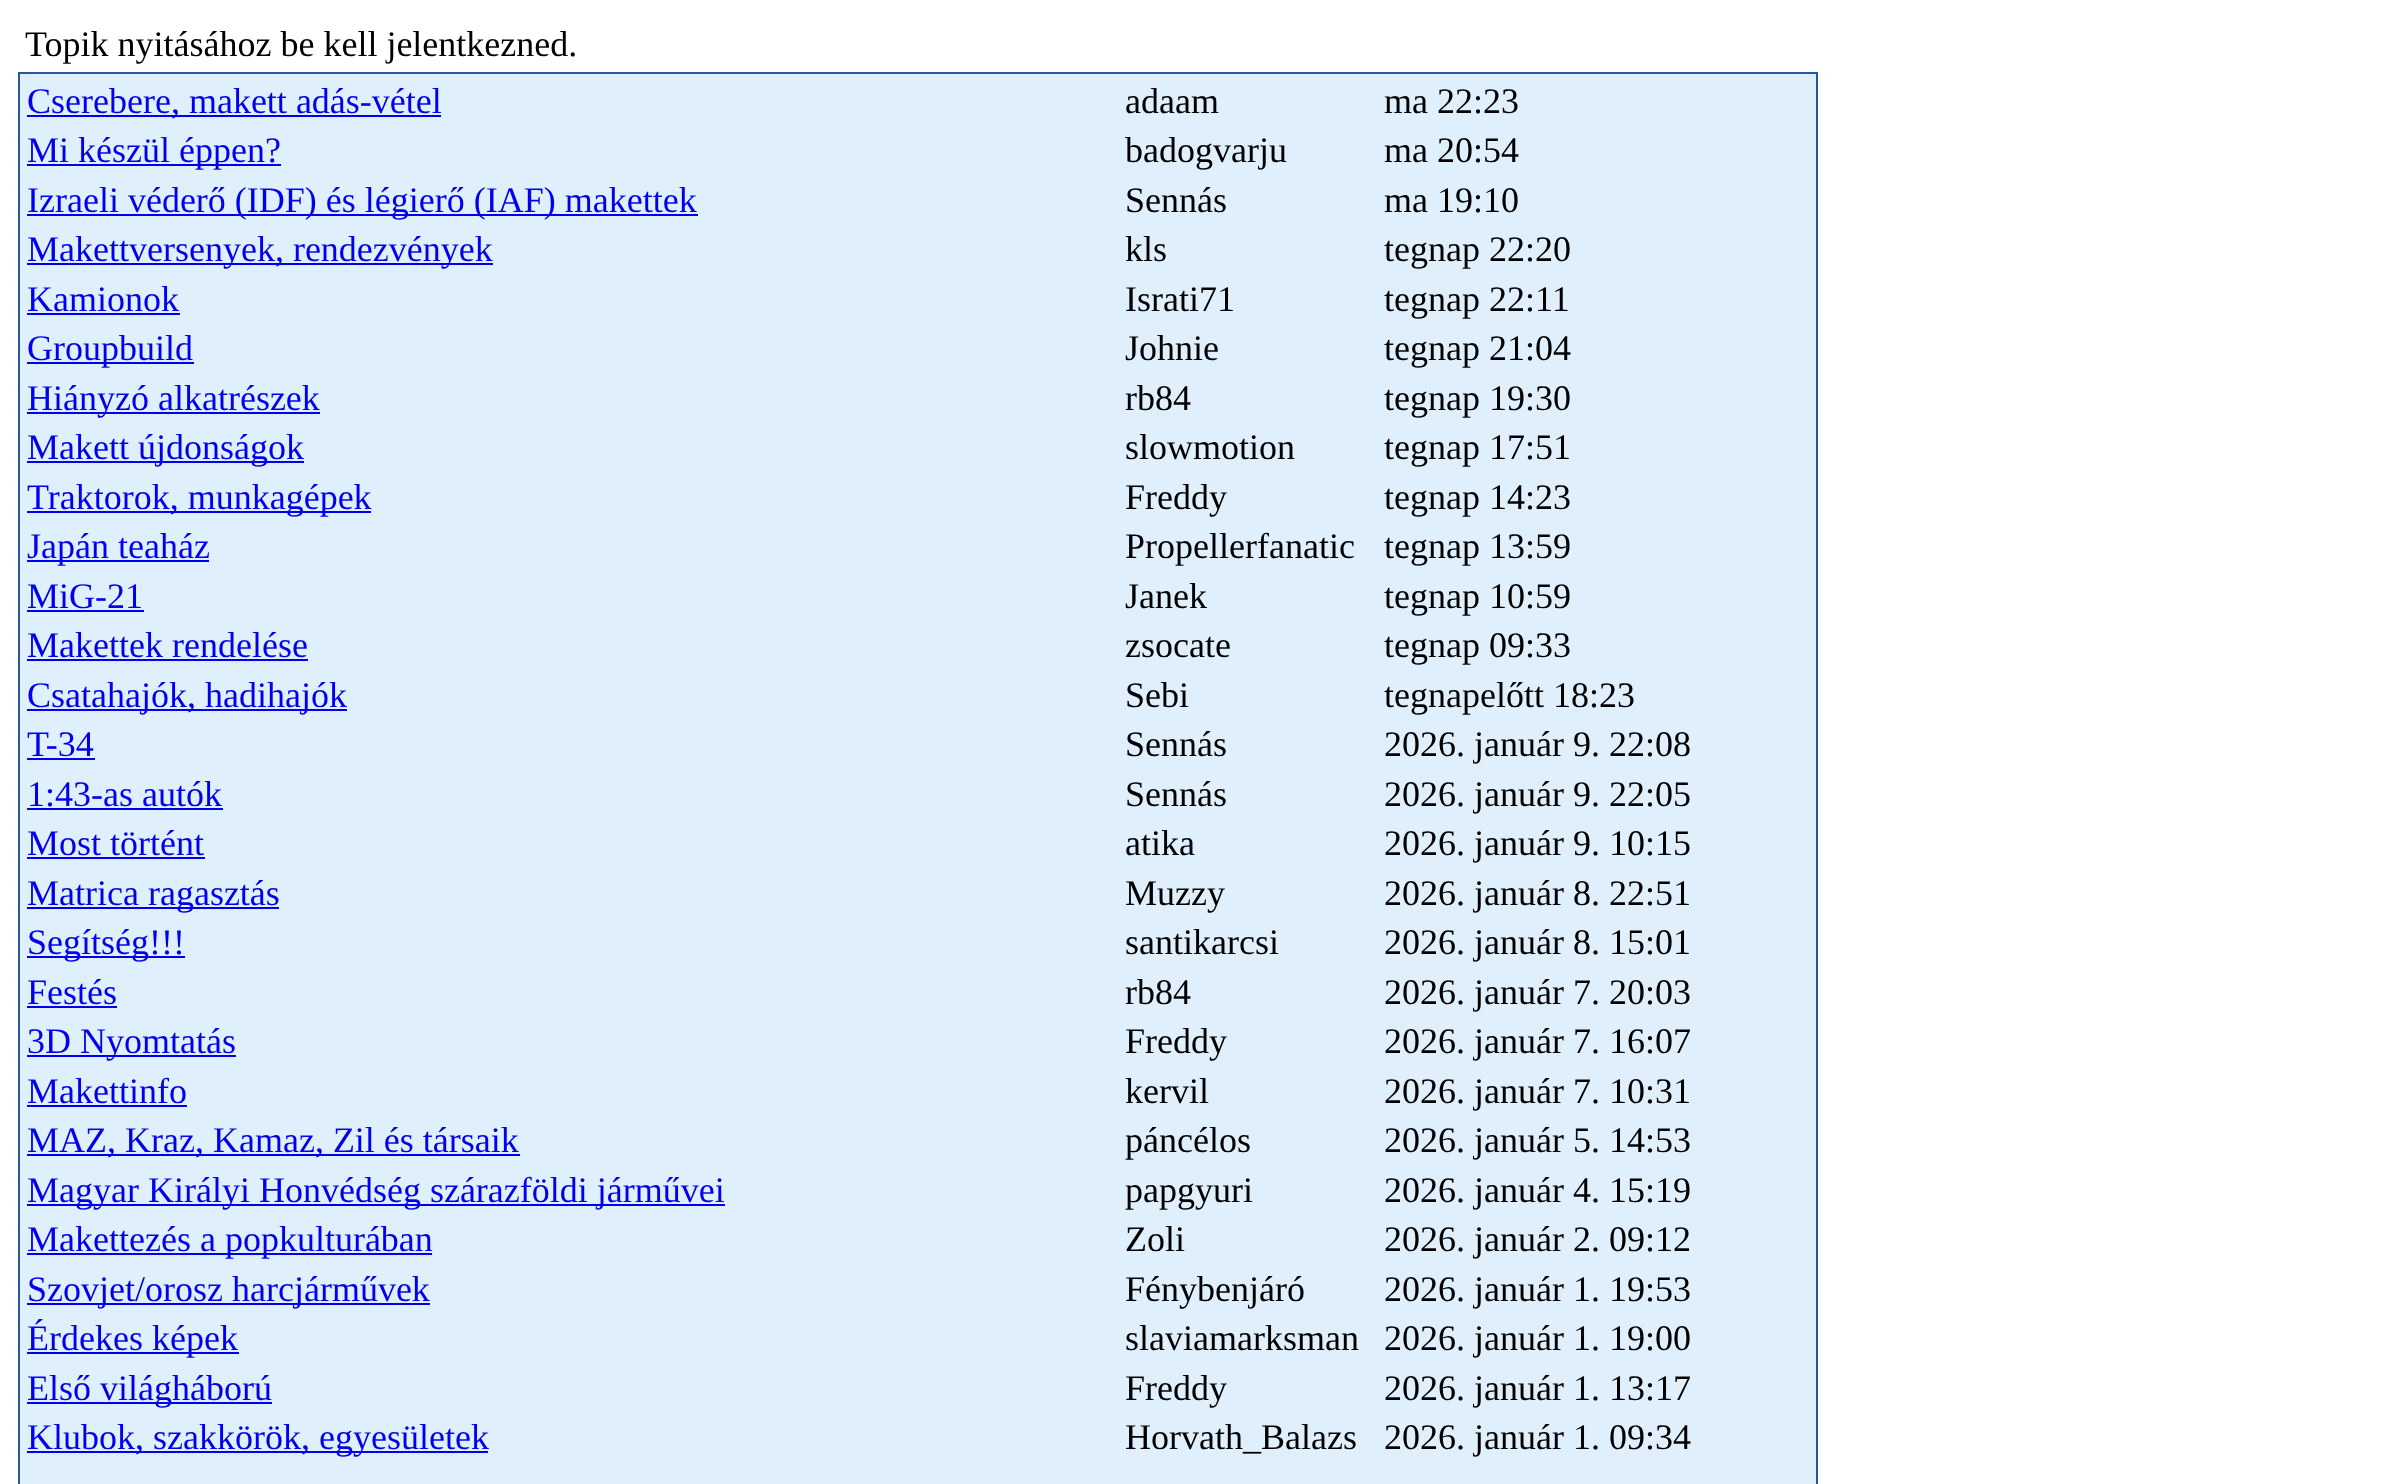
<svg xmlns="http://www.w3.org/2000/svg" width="2386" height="1484">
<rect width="100%" height="100%" fill="#fff"/>
<text x="25" y="56" style="font-family:Liberation Serif;font-size:36px;fill:#000">Topik nyitásához be kell jelentkezned.</text>
<rect x="19" y="73" width="1798" height="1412" fill="#dfeffb" stroke="#28559f" stroke-width="2"/>
<rect x="27" y="115" width="414" height="2" fill="#00e"/>
<text x="27" y="113" style="font-family:Liberation Serif;font-size:36px;fill:#00e">Cserebere, makett adás-vétel</text>
<text x="1125" y="113" style="font-family:Liberation Serif;font-size:36px;fill:#000">adaam</text>
<text x="1384" y="113" style="font-family:Liberation Serif;font-size:36px;fill:#000">ma 22:23</text>
<rect x="27" y="164" width="254" height="2" fill="#00e"/>
<text x="27" y="162" style="font-family:Liberation Serif;font-size:36px;fill:#00e">Mi készül éppen?</text>
<text x="1125" y="162" style="font-family:Liberation Serif;font-size:36px;fill:#000">badogvarju</text>
<text x="1384" y="162" style="font-family:Liberation Serif;font-size:36px;fill:#000">ma 20:54</text>
<rect x="27" y="214" width="671" height="2" fill="#00e"/>
<text x="27" y="212" style="font-family:Liberation Serif;font-size:36px;fill:#00e">Izraeli véderő (IDF) és légierő (IAF) makettek</text>
<text x="1125" y="212" style="font-family:Liberation Serif;font-size:36px;fill:#000">Sennás</text>
<text x="1384" y="212" style="font-family:Liberation Serif;font-size:36px;fill:#000">ma 19:10</text>
<rect x="27" y="263" width="466" height="2" fill="#00e"/>
<text x="27" y="261" style="font-family:Liberation Serif;font-size:36px;fill:#00e">Makettversenyek, rendezvények</text>
<text x="1125" y="261" style="font-family:Liberation Serif;font-size:36px;fill:#000">kls</text>
<text x="1384" y="261" style="font-family:Liberation Serif;font-size:36px;fill:#000">tegnap 22:20</text>
<text x="27" y="311" style="font-family:Liberation Serif;font-size:36px;fill:#00e">Kamionok</text>
<rect x="27" y="313" width="153" height="2" fill="#00e"/>
<text x="1125" y="311" style="font-family:Liberation Serif;font-size:36px;fill:#000">Israti71</text>
<text x="1384" y="311" style="font-family:Liberation Serif;font-size:36px;fill:#000">tegnap 22:11</text>
<rect x="27" y="362" width="167" height="2" fill="#00e"/>
<text x="27" y="360" style="font-family:Liberation Serif;font-size:36px;fill:#00e">Groupbuild</text>
<text x="1125" y="360" style="font-family:Liberation Serif;font-size:36px;fill:#000">Johnie</text>
<text x="1384" y="360" style="font-family:Liberation Serif;font-size:36px;fill:#000">tegnap 21:04</text>
<rect x="27" y="412" width="293" height="2" fill="#00e"/>
<text x="27" y="410" style="font-family:Liberation Serif;font-size:36px;fill:#00e">Hiányzó alkatrészek</text>
<text x="1125" y="410" style="font-family:Liberation Serif;font-size:36px;fill:#000">rb84</text>
<text x="1384" y="410" style="font-family:Liberation Serif;font-size:36px;fill:#000">tegnap 19:30</text>
<rect x="27" y="461" width="277" height="2" fill="#00e"/>
<text x="27" y="459" style="font-family:Liberation Serif;font-size:36px;fill:#00e">Makett újdonságok</text>
<text x="1125" y="459" style="font-family:Liberation Serif;font-size:36px;fill:#000">slowmotion</text>
<text x="1384" y="459" style="font-family:Liberation Serif;font-size:36px;fill:#000">tegnap 17:51</text>
<rect x="27" y="511" width="344" height="2" fill="#00e"/>
<text x="27" y="509" style="font-family:Liberation Serif;font-size:36px;fill:#00e">Traktorok, munkagépek</text>
<text x="1125" y="509" style="font-family:Liberation Serif;font-size:36px;fill:#000">Freddy</text>
<text x="1384" y="509" style="font-family:Liberation Serif;font-size:36px;fill:#000">tegnap 14:23</text>
<rect x="27" y="560" width="182" height="2" fill="#00e"/>
<text x="27" y="558" style="font-family:Liberation Serif;font-size:36px;fill:#00e">Japán teaház</text>
<text x="1125" y="558" style="font-family:Liberation Serif;font-size:36px;fill:#000">Propellerfanatic</text>
<text x="1384" y="558" style="font-family:Liberation Serif;font-size:36px;fill:#000">tegnap 13:59</text>
<text x="27" y="608" style="font-family:Liberation Serif;font-size:36px;fill:#00e">MiG-21</text>
<rect x="27" y="610" width="117" height="2" fill="#00e"/>
<text x="1125" y="608" style="font-family:Liberation Serif;font-size:36px;fill:#000">Janek</text>
<text x="1384" y="608" style="font-family:Liberation Serif;font-size:36px;fill:#000">tegnap 10:59</text>
<text x="27" y="657" style="font-family:Liberation Serif;font-size:36px;fill:#00e">Makettek rendelése</text>
<rect x="27" y="659" width="281" height="2" fill="#00e"/>
<text x="1125" y="657" style="font-family:Liberation Serif;font-size:36px;fill:#000">zsocate</text>
<text x="1384" y="657" style="font-family:Liberation Serif;font-size:36px;fill:#000">tegnap 09:33</text>
<rect x="27" y="709" width="320" height="2" fill="#00e"/>
<text x="27" y="707" style="font-family:Liberation Serif;font-size:36px;fill:#00e">Csatahajók, hadihajók</text>
<text x="1125" y="707" style="font-family:Liberation Serif;font-size:36px;fill:#000">Sebi</text>
<text x="1384" y="707" style="font-family:Liberation Serif;font-size:36px;fill:#000">tegnapelőtt 18:23</text>
<text x="27" y="756" style="font-family:Liberation Serif;font-size:36px;fill:#00e">T-34</text>
<rect x="27" y="758" width="68" height="2" fill="#00e"/>
<text x="1125" y="756" style="font-family:Liberation Serif;font-size:36px;fill:#000">Sennás</text>
<text x="1384" y="756" style="font-family:Liberation Serif;font-size:36px;fill:#000">2026. január 9. 22:08</text>
<text x="27" y="806" style="font-family:Liberation Serif;font-size:36px;fill:#00e">1:43-as autók</text>
<rect x="27" y="808" width="196" height="2" fill="#00e"/>
<text x="1125" y="806" style="font-family:Liberation Serif;font-size:36px;fill:#000">Sennás</text>
<text x="1384" y="806" style="font-family:Liberation Serif;font-size:36px;fill:#000">2026. január 9. 22:05</text>
<text x="27" y="855" style="font-family:Liberation Serif;font-size:36px;fill:#00e">Most történt</text>
<rect x="27" y="857" width="178" height="2" fill="#00e"/>
<text x="1125" y="855" style="font-family:Liberation Serif;font-size:36px;fill:#000">atika</text>
<text x="1384" y="855" style="font-family:Liberation Serif;font-size:36px;fill:#000">2026. január 9. 10:15</text>
<rect x="27" y="907" width="252" height="2" fill="#00e"/>
<text x="27" y="905" style="font-family:Liberation Serif;font-size:36px;fill:#00e">Matrica ragasztás</text>
<text x="1125" y="905" style="font-family:Liberation Serif;font-size:36px;fill:#000">Muzzy</text>
<text x="1384" y="905" style="font-family:Liberation Serif;font-size:36px;fill:#000">2026. január 8. 22:51</text>
<rect x="27" y="956" width="158" height="2" fill="#00e"/>
<text x="27" y="954" style="font-family:Liberation Serif;font-size:36px;fill:#00e">Segítség!!!</text>
<text x="1125" y="954" style="font-family:Liberation Serif;font-size:36px;fill:#000">santikarcsi</text>
<text x="1384" y="954" style="font-family:Liberation Serif;font-size:36px;fill:#000">2026. január 8. 15:01</text>
<text x="27" y="1004" style="font-family:Liberation Serif;font-size:36px;fill:#00e">Festés</text>
<rect x="27" y="1006" width="90" height="2" fill="#00e"/>
<text x="1125" y="1004" style="font-family:Liberation Serif;font-size:36px;fill:#000">rb84</text>
<text x="1384" y="1004" style="font-family:Liberation Serif;font-size:36px;fill:#000">2026. január 7. 20:03</text>
<rect x="27" y="1055" width="209" height="2" fill="#00e"/>
<text x="27" y="1053" style="font-family:Liberation Serif;font-size:36px;fill:#00e">3D Nyomtatás</text>
<text x="1125" y="1053" style="font-family:Liberation Serif;font-size:36px;fill:#000">Freddy</text>
<text x="1384" y="1053" style="font-family:Liberation Serif;font-size:36px;fill:#000">2026. január 7. 16:07</text>
<text x="27" y="1103" style="font-family:Liberation Serif;font-size:36px;fill:#00e">Makettinfo</text>
<rect x="27" y="1105" width="160" height="2" fill="#00e"/>
<text x="1125" y="1103" style="font-family:Liberation Serif;font-size:36px;fill:#000">kervil</text>
<text x="1384" y="1103" style="font-family:Liberation Serif;font-size:36px;fill:#000">2026. január 7. 10:31</text>
<rect x="27" y="1154" width="493" height="2" fill="#00e"/>
<text x="27" y="1152" style="font-family:Liberation Serif;font-size:36px;fill:#00e">MAZ, Kraz, Kamaz, Zil és társaik</text>
<text x="1125" y="1152" style="font-family:Liberation Serif;font-size:36px;fill:#000">páncélos</text>
<text x="1384" y="1152" style="font-family:Liberation Serif;font-size:36px;fill:#000">2026. január 5. 14:53</text>
<rect x="27" y="1204" width="698" height="2" fill="#00e"/>
<text x="27" y="1202" style="font-family:Liberation Serif;font-size:36px;fill:#00e">Magyar Királyi Honvédség szárazföldi járművei</text>
<text x="1125" y="1202" style="font-family:Liberation Serif;font-size:36px;fill:#000">papgyuri</text>
<text x="1384" y="1202" style="font-family:Liberation Serif;font-size:36px;fill:#000">2026. január 4. 15:19</text>
<rect x="27" y="1253" width="405" height="2" fill="#00e"/>
<text x="27" y="1251" style="font-family:Liberation Serif;font-size:36px;fill:#00e">Makettezés a popkulturában</text>
<text x="1125" y="1251" style="font-family:Liberation Serif;font-size:36px;fill:#000">Zoli</text>
<text x="1384" y="1251" style="font-family:Liberation Serif;font-size:36px;fill:#000">2026. január 2. 09:12</text>
<rect x="27" y="1303" width="403" height="2" fill="#00e"/>
<text x="27" y="1301" style="font-family:Liberation Serif;font-size:36px;fill:#00e">Szovjet/orosz harcjárművek</text>
<text x="1125" y="1301" style="font-family:Liberation Serif;font-size:36px;fill:#000">Fénybenjáró</text>
<text x="1384" y="1301" style="font-family:Liberation Serif;font-size:36px;fill:#000">2026. január 1. 19:53</text>
<rect x="27" y="1352" width="212" height="2" fill="#00e"/>
<text x="27" y="1350" style="font-family:Liberation Serif;font-size:36px;fill:#00e">Érdekes képek</text>
<text x="1125" y="1350" style="font-family:Liberation Serif;font-size:36px;fill:#000">slaviamarksman</text>
<text x="1384" y="1350" style="font-family:Liberation Serif;font-size:36px;fill:#000">2026. január 1. 19:00</text>
<rect x="27" y="1402" width="245" height="2" fill="#00e"/>
<text x="27" y="1400" style="font-family:Liberation Serif;font-size:36px;fill:#00e">Első világháború</text>
<text x="1125" y="1400" style="font-family:Liberation Serif;font-size:36px;fill:#000">Freddy</text>
<text x="1384" y="1400" style="font-family:Liberation Serif;font-size:36px;fill:#000">2026. január 1. 13:17</text>
<rect x="27" y="1451" width="461" height="2" fill="#00e"/>
<text x="27" y="1449" style="font-family:Liberation Serif;font-size:36px;fill:#00e">Klubok, szakkörök, egyesületek</text>
<text x="1125" y="1449" style="font-family:Liberation Serif;font-size:36px;fill:#000">Horvath_Balazs</text>
<text x="1384" y="1449" style="font-family:Liberation Serif;font-size:36px;fill:#000">2026. január 1. 09:34</text>
</svg>
